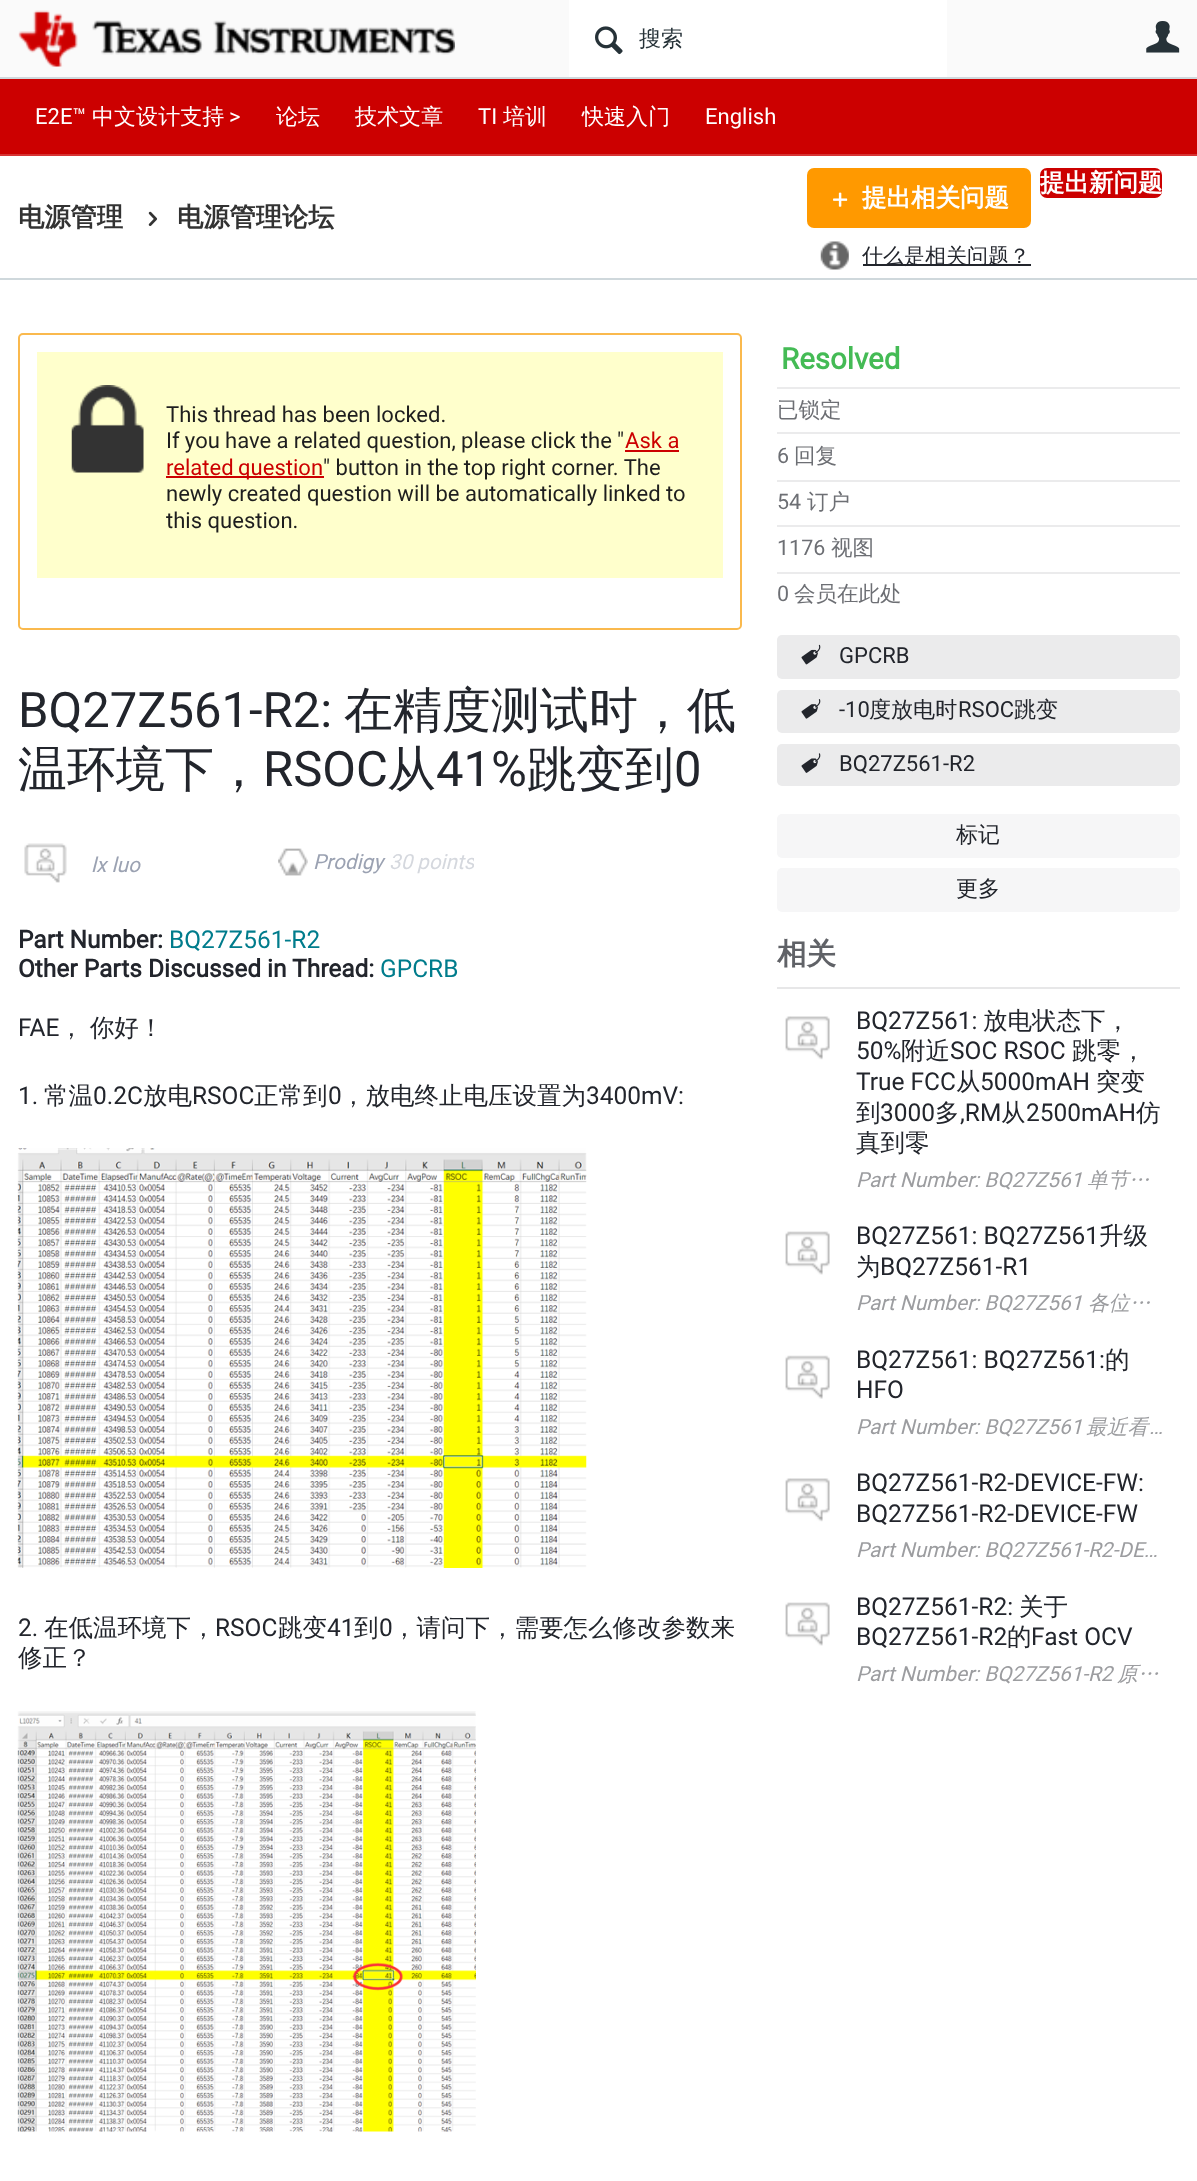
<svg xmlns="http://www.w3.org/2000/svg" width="1197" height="2181">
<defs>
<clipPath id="clip1"><rect x="18" y="835" width="456" height="56"/></clipPath>
</defs>
<rect width="100%" height="100%" fill="#fff"/>
<rect width="1197" height="77" fill="#fafafa"/>
<rect y="77" width="1197" height="2" fill="#cfd8dc"/>
<image x="18" y="10" width="437" height="57" href="media/1.png"/>
<rect x="569" width="378" height="77" fill="#fff"/>
<image x="595" y="26" width="28" height="29" href="media/2.png"/>
<text x="639" y="46" style="font-family:WenQuanYi Zen Hei;font-size:22.05px;font-weight:500;fill:#263238">搜索</text>
<image x="1146" y="21" width="34" height="32" href="media/3.png"/>
<rect y="278" width="1197" height="2" fill="#cfd8dc"/>
<rect y="79" width="1197" height="75" fill="#c00"/>
<rect y="154" width="1197" height="2" fill="#d63333"/>
<text x="35" y="124" style="font-family:Roboto;font-size:22.05px;fill:#fff">E2E™</text>
<text x="92" y="124" style="font-family:WenQuanYi Zen Hei;font-size:22.05px;font-weight:500;fill:#fff">中文设计支持</text>
<text x="229" y="124" style="font-family:Roboto;font-size:22.05px;fill:#fff">&gt;</text>
<text x="276" y="124" style="font-family:WenQuanYi Zen Hei;font-size:22.05px;font-weight:500;fill:#fff">论坛</text>
<text x="355" y="124" style="font-family:WenQuanYi Zen Hei;font-size:22.05px;font-weight:500;fill:#fff">技术文章</text>
<text x="478" y="124" style="font-family:Roboto;font-size:22.05px;fill:#fff">TI</text>
<text x="503" y="124" style="font-family:WenQuanYi Zen Hei;font-size:22.05px;font-weight:500;fill:#fff">培训</text>
<text x="582" y="124" style="font-family:WenQuanYi Zen Hei;font-size:22.05px;font-weight:500;fill:#fff">快速入门</text>
<text x="705" y="124" style="font-family:Roboto;font-size:22.05px;fill:#fff">English</text>
<text x="18" y="226" style="font-family:WenQuanYi Zen Hei;font-size:26.25px;font-weight:bold;fill:#333">电源管理</text>
<image x="148" y="211" width="10" height="15" href="media/4.png"/>
<text x="177" y="226" style="font-family:WenQuanYi Zen Hei;font-size:26.25px;font-weight:bold;fill:#333">电源管理论坛</text>
<rect x="1040" y="168" width="122" height="30" rx="7" fill="#c00"/>
<text x="1040" y="191" style="font-family:WenQuanYi Zen Hei;font-size:24.5px;font-weight:bold;fill:#fff">提出新问题</text>
<rect x="807" y="168" width="224" height="60" rx="7" fill="#f90"/>
<image x="833" y="192" width="15" height="15" href="media/5.png"/>
<text x="862" y="206" style="font-family:WenQuanYi Zen Hei;font-size:24.5px;font-weight:bold;fill:#fff">提出相关问题</text>
<image x="820" y="241" width="29" height="29" href="media/6.png"/>
<rect x="863" y="264" width="168" height="2" fill="#22252c"/>
<text x="862" y="263" style="font-family:WenQuanYi Zen Hei;font-size:21px;font-weight:500;fill:#22252c">什么是相关问题？</text>
<rect x="19" y="334" width="722" height="295" rx="4" fill="none" stroke="#fab94d" stroke-width="2"/>
<rect x="37" y="352" width="686" height="226" fill="#ffc"/>
<image x="71" y="385" width="73" height="88" href="media/7.png"/>
<text x="166" y="422" style="font-family:Roboto;font-size:22.05px;fill:#1e1e1e">This thread has been locked.</text>
<text x="166" y="448" word-spacing="-0.25" style="font-family:Roboto;font-size:22.05px;fill:#1e1e1e">If you have a related question, please click the "</text>
<text x="625" y="448" style="font-family:Roboto;font-size:22.05px;fill:#c00">Ask a</text>
<rect x="625" y="450" width="54" height="2" fill="#c00"/>
<rect x="166" y="476" width="158" height="2" fill="#c00"/>
<text x="166" y="475" word-spacing="-1" style="font-family:Roboto;font-size:22.05px;fill:#c00">related question</text>
<text x="323" y="475" style="font-family:Roboto;font-size:22.05px;fill:#1e1e1e">" button in the top right corner. The</text>
<text x="166" y="501" style="font-family:Roboto;font-size:22.05px;fill:#1e1e1e">newly created question will be automatically linked to</text>
<text x="166" y="528" style="font-family:Roboto;font-size:22.05px;fill:#1e1e1e">this question.</text>
<text x="18" y="727" style="font-family:Roboto;font-size:49px;fill:#22252c">BQ27Z561-R2:</text>
<text x="344" y="727" style="font-family:WenQuanYi Zen Hei;font-size:49px;font-weight:500;fill:#22252c">在精度测试时，低</text>
<text x="18" y="786" style="font-family:WenQuanYi Zen Hei;font-size:49px;font-weight:500;fill:#22252c">温环境下，</text>
<text x="263" y="786" style="font-family:Roboto;font-size:49px;fill:#22252c">RSOC</text>
<text x="387" y="786" style="font-family:WenQuanYi Zen Hei;font-size:49px;font-weight:500;fill:#22252c">从</text>
<text x="436" y="786" style="font-family:Roboto;font-size:49px;fill:#22252c">41%</text>
<text x="527" y="786" style="font-family:WenQuanYi Zen Hei;font-size:49px;font-weight:500;fill:#22252c">跳变到</text>
<text x="674" y="786" style="font-family:Roboto;font-size:49px;fill:#22252c">0</text>
<image x="24" y="843" width="43" height="40" href="media/8.png"/>
<text x="91" y="872" style="font-family:Roboto;font-size:20.8px;font-style:italic;fill:#9ba2b2">lx luo</text>
<image x="278" y="848" width="30" height="28" href="media/9.png"/>
<text x="313" y="869" style="font-family:Roboto;font-size:20.8px;font-style:italic;fill:#9ba2b2">Prodigy</text>
<text x="389" y="869" style="font-family:Roboto;font-size:20.8px;font-style:italic;fill:#d5d8de">30</text>
<g clip-path="url(#clip1)">
<text x="417" y="869" style="font-family:Roboto;font-size:20.8px;font-style:italic;fill:#d5d8de">points</text>
</g>
<text x="18" y="948" style="font-family:Roboto;font-size:24.5px;font-weight:bold;fill:#22252c">Part Number:</text>
<text x="169" y="948" style="font-family:Roboto;font-size:24.5px;fill:#007c8c">BQ27Z561-R2</text>
<text x="18" y="977" style="font-family:Roboto;font-size:24.5px;font-weight:bold;fill:#22252c">Other Parts Discussed in Thread:</text>
<text x="380" y="977" style="font-family:Roboto;font-size:24.5px;fill:#007c8c">GPCRB</text>
<text x="18" y="1036" style="font-family:Roboto;font-size:24.5px;fill:#22252c">FAE</text>
<text x="59" y="1036" word-spacing="-1" style="font-family:WenQuanYi Zen Hei;font-size:24.5px;font-weight:500;fill:#22252c">， 你好！</text>
<text x="18" y="1104" style="font-family:Roboto;font-size:24.5px;fill:#22252c">1.</text>
<text x="44" y="1104" style="font-family:WenQuanYi Zen Hei;font-size:24.5px;font-weight:500;fill:#22252c">常温</text>
<text x="93" y="1104" style="font-family:Roboto;font-size:24.5px;fill:#22252c">0.2C</text>
<text x="143" y="1104" style="font-family:WenQuanYi Zen Hei;font-size:24.5px;font-weight:500;fill:#22252c">放电</text>
<text x="192" y="1104" style="font-family:Roboto;font-size:24.5px;fill:#22252c">RSOC</text>
<text x="254" y="1104" style="font-family:WenQuanYi Zen Hei;font-size:24.5px;font-weight:500;fill:#22252c">正常到</text>
<text x="328" y="1104" style="font-family:Roboto;font-size:24.5px;fill:#22252c">0</text>
<text x="341" y="1104" style="font-family:WenQuanYi Zen Hei;font-size:24.5px;font-weight:500;fill:#22252c">，放电终止电压设置为</text>
<text x="586" y="1104" style="font-family:Roboto;font-size:24.5px;fill:#22252c">3400mV:</text>
<image x="17" y="1148" width="570" height="420" href="media/10.png"/>
<text x="18" y="1636" style="font-family:Roboto;font-size:24.5px;fill:#22252c">2.</text>
<text x="44" y="1636" style="font-family:WenQuanYi Zen Hei;font-size:24.5px;font-weight:500;fill:#22252c">在低温环境下，</text>
<text x="215" y="1636" style="font-family:Roboto;font-size:24.5px;fill:#22252c">RSOC</text>
<text x="278" y="1636" style="font-family:WenQuanYi Zen Hei;font-size:24.5px;font-weight:500;fill:#22252c">跳变</text>
<text x="327" y="1636" style="font-family:Roboto;font-size:24.5px;fill:#22252c">41</text>
<text x="354" y="1636" style="font-family:WenQuanYi Zen Hei;font-size:24.5px;font-weight:500;fill:#22252c">到</text>
<text x="379" y="1636" style="font-family:Roboto;font-size:24.5px;fill:#22252c">0</text>
<text x="392" y="1636" style="font-family:WenQuanYi Zen Hei;font-size:24.5px;font-weight:500;fill:#22252c">，请问下，需要怎么修改参数来</text>
<text x="18" y="1666" style="font-family:WenQuanYi Zen Hei;font-size:24.5px;font-weight:500;fill:#22252c">修正？</text>
<image x="17" y="1711" width="459" height="421" href="media/11.png"/>
<rect x="777" y="387" width="403" height="2" fill="#ebebec"/>
<text x="781" y="369" style="font-family:Roboto;font-size:29.5px;font-weight:bold;fill:#4b5">Resolved</text>
<rect x="777" y="432" width="403" height="2" fill="#ebebec"/>
<text x="777" y="417" style="font-family:WenQuanYi Zen Hei;font-size:21.5px;font-weight:500;fill:#6d6f74">已锁定</text>
<rect x="777" y="480" width="403" height="2" fill="#ebebec"/>
<text x="777" y="463" style="font-family:Roboto;font-size:21.5px;fill:#6d6f74">6</text>
<text x="794" y="463" style="font-family:WenQuanYi Zen Hei;font-size:21.5px;font-weight:500;fill:#6d6f74">回复</text>
<rect x="777" y="525" width="403" height="2" fill="#ebebec"/>
<text x="777" y="509" style="font-family:Roboto;font-size:21.5px;fill:#6d6f74">54</text>
<text x="807" y="509" style="font-family:WenQuanYi Zen Hei;font-size:21.5px;font-weight:500;fill:#6d6f74">订户</text>
<rect x="777" y="572" width="403" height="2" fill="#ebebec"/>
<text x="777" y="555" style="font-family:Roboto;font-size:21.5px;fill:#6d6f74">1176</text>
<text x="831" y="555" style="font-family:WenQuanYi Zen Hei;font-size:21.5px;font-weight:500;fill:#6d6f74">视图</text>
<text x="777" y="601" style="font-family:Roboto;font-size:21.5px;fill:#6d6f74">0</text>
<text x="794" y="601" style="font-family:WenQuanYi Zen Hei;font-size:21.5px;font-weight:500;fill:#6d6f74">会员在此处</text>
<rect x="777" y="635" width="403" height="44" rx="5" fill="#ebebec"/>
<image x="801" y="644" width="20" height="21" href="media/12.png"/>
<text x="839" y="663" style="font-family:Roboto;font-size:22.05px;fill:#22252c">GPCRB</text>
<rect x="777" y="690" width="403" height="43" rx="5" fill="#ebebec"/>
<image x="801" y="699" width="20" height="20" href="media/13.png"/>
<text x="839" y="717" style="font-family:Roboto;font-size:22.05px;fill:#22252c">-10</text>
<text x="869" y="717" style="font-family:WenQuanYi Zen Hei;font-size:22.05px;font-weight:500;fill:#22252c">度放电时</text>
<text x="958" y="717" style="font-family:Roboto;font-size:22.05px;fill:#22252c">RSOC</text>
<text x="1014" y="717" style="font-family:WenQuanYi Zen Hei;font-size:22.05px;font-weight:500;fill:#22252c">跳变</text>
<rect x="777" y="744" width="403" height="42" rx="5" fill="#ebebec"/>
<image x="801" y="753" width="20" height="20" href="media/14.png"/>
<text x="839" y="771" style="font-family:Roboto;font-size:22.05px;fill:#22252c">BQ27Z561-R2</text>
<rect x="777" y="814" width="403" height="44" rx="5" fill="#f6f6f7"/>
<text x="956" y="842" style="font-family:WenQuanYi Zen Hei;font-size:22.05px;font-weight:500;fill:#22252c">标记</text>
<rect x="777" y="868" width="403" height="44" rx="5" fill="#f6f6f7"/>
<text x="956" y="896" style="font-family:WenQuanYi Zen Hei;font-size:22.05px;font-weight:500;fill:#22252c">更多</text>
<rect x="777" y="987" width="403" height="2" fill="#e7e7e8"/>
<text x="777" y="964" style="font-family:WenQuanYi Zen Hei;font-size:29.5px;font-weight:bold;fill:#606267">相关</text>
<text x="856" y="1029" style="font-family:Roboto;font-size:24.5px;fill:#22252c">BQ27Z561:</text>
<text x="983" y="1029" style="font-family:WenQuanYi Zen Hei;font-size:24.5px;font-weight:500;fill:#22252c">放电状态下，</text>
<text x="856" y="1059" style="font-family:Roboto;font-size:24.5px;fill:#22252c">50%</text>
<text x="901" y="1059" style="font-family:WenQuanYi Zen Hei;font-size:24.5px;font-weight:500;fill:#22252c">附近</text>
<text x="950" y="1059" style="font-family:Roboto;font-size:24.5px;fill:#22252c">SOC RSOC</text>
<text x="1072" y="1059" style="font-family:WenQuanYi Zen Hei;font-size:24.5px;font-weight:500;fill:#22252c">跳零，</text>
<text x="856" y="1090" style="font-family:Roboto;font-size:24.5px;fill:#22252c">True FCC</text>
<text x="956" y="1090" style="font-family:WenQuanYi Zen Hei;font-size:24.5px;font-weight:500;fill:#22252c">从</text>
<text x="980" y="1090" style="font-family:Roboto;font-size:24.5px;fill:#22252c">5000mAH</text>
<text x="1096" y="1090" style="font-family:WenQuanYi Zen Hei;font-size:24.5px;font-weight:500;fill:#22252c">突变</text>
<text x="856" y="1121" style="font-family:WenQuanYi Zen Hei;font-size:24.5px;font-weight:500;fill:#22252c">到</text>
<text x="880" y="1121" style="font-family:Roboto;font-size:24.5px;fill:#22252c">3000</text>
<text x="935" y="1121" style="font-family:WenQuanYi Zen Hei;font-size:24.5px;font-weight:500;fill:#22252c">多</text>
<text x="960" y="1121" style="font-family:Roboto;font-size:24.5px;fill:#22252c">,RM</text>
<text x="1001" y="1121" style="font-family:WenQuanYi Zen Hei;font-size:24.5px;font-weight:500;fill:#22252c">从</text>
<text x="1026" y="1121" style="font-family:Roboto;font-size:24.5px;fill:#22252c">2500mAH</text>
<text x="1136" y="1121" style="font-family:WenQuanYi Zen Hei;font-size:24.5px;font-weight:500;fill:#22252c">仿</text>
<text x="856" y="1151" style="font-family:WenQuanYi Zen Hei;font-size:24.5px;font-weight:500;fill:#22252c">真到零</text>
<image x="785" y="1016" width="45" height="44" href="media/15.png"/>
<text x="856" y="1187" style="font-family:Roboto;font-size:20.8px;font-style:italic;fill:#9c9da0">Part Number: BQ27Z561</text>
<text x="1087" y="1187" style="font-family:WenQuanYi Zen Hei;font-size:20.8px;font-weight:500;font-style:italic;fill:#9c9da0">单节…</text>
<text x="856" y="1244" style="font-family:Roboto;font-size:24.5px;fill:#22252c">BQ27Z561: BQ27Z561</text>
<text x="1099" y="1244" style="font-family:WenQuanYi Zen Hei;font-size:24.5px;font-weight:500;fill:#22252c">升级</text>
<text x="856" y="1275" style="font-family:WenQuanYi Zen Hei;font-size:24.5px;font-weight:500;fill:#22252c">为</text>
<text x="880" y="1275" style="font-family:Roboto;font-size:24.5px;fill:#22252c">BQ27Z561-R1</text>
<image x="785" y="1231" width="45" height="44" href="media/16.png"/>
<text x="856" y="1310" style="font-family:Roboto;font-size:20.8px;font-style:italic;fill:#9c9da0">Part Number: BQ27Z561</text>
<text x="1088" y="1310" style="font-family:WenQuanYi Zen Hei;font-size:20.8px;font-weight:500;font-style:italic;fill:#9c9da0">各位…</text>
<text x="856" y="1368" style="font-family:Roboto;font-size:24.5px;fill:#22252c">BQ27Z561: BQ27Z561:</text>
<text x="1105" y="1368" style="font-family:WenQuanYi Zen Hei;font-size:24.5px;font-weight:500;fill:#22252c">的</text>
<text x="856" y="1398" style="font-family:Roboto;font-size:24.5px;fill:#22252c">HFO</text>
<image x="785" y="1355" width="45" height="44" href="media/17.png"/>
<text x="856" y="1434" style="font-family:Roboto;font-size:20.8px;font-style:italic;fill:#9c9da0">Part Number: BQ27Z561</text>
<text x="1086" y="1434" style="font-family:WenQuanYi Zen Hei;font-size:20.8px;font-weight:500;font-style:italic;fill:#9c9da0">最近看</text>
<text x="1149" y="1434" style="font-family:Roboto;font-size:20.8px;font-style:italic;fill:#9c9da0">…</text>
<text x="856" y="1491" style="font-family:Roboto;font-size:24.5px;fill:#22252c">BQ27Z561-R2-DEVICE-FW:</text>
<text x="856" y="1522" style="font-family:Roboto;font-size:24.5px;fill:#22252c">BQ27Z561-R2-DEVICE-FW</text>
<image x="785" y="1478" width="45" height="44" href="media/18.png"/>
<text x="856" y="1557" style="font-family:Roboto;font-size:20.8px;font-style:italic;fill:#9c9da0">Part Number: BQ27Z561-R2-DE…</text>
<text x="856" y="1615" style="font-family:Roboto;font-size:24.5px;fill:#22252c">BQ27Z561-R2:</text>
<text x="1019" y="1615" style="font-family:WenQuanYi Zen Hei;font-size:24.5px;font-weight:500;fill:#22252c">关于</text>
<text x="856" y="1645" style="font-family:Roboto;font-size:24.5px;fill:#22252c">BQ27Z561-R2</text>
<text x="1007" y="1645" style="font-family:WenQuanYi Zen Hei;font-size:24.5px;font-weight:500;fill:#22252c">的</text>
<text x="1031" y="1645" style="font-family:Roboto;font-size:24.5px;fill:#22252c">Fast OCV</text>
<image x="785" y="1602" width="45" height="44" href="media/19.png"/>
<text x="856" y="1681" style="font-family:Roboto;font-size:20.8px;font-style:italic;fill:#9c9da0">Part Number: BQ27Z561-R2</text>
<text x="1117" y="1681" style="font-family:WenQuanYi Zen Hei;font-size:20.8px;font-weight:500;font-style:italic;fill:#9c9da0">原…</text>
</svg>
